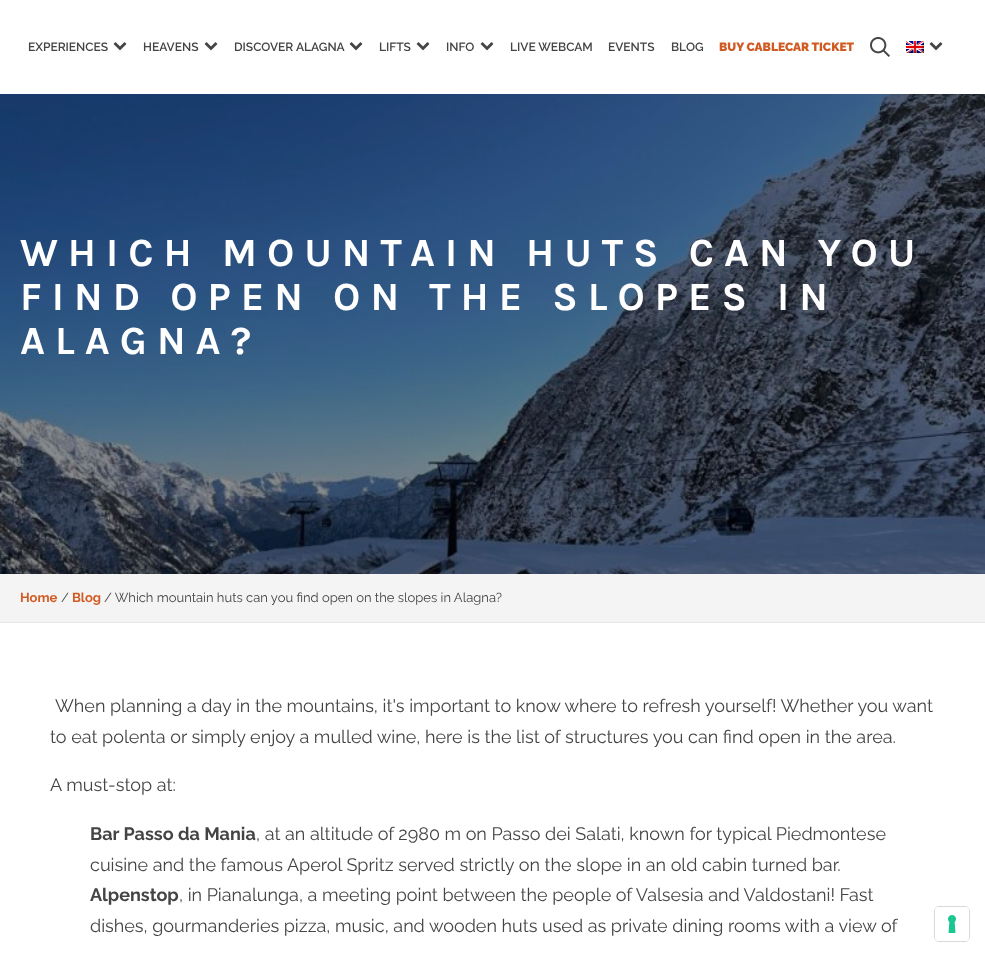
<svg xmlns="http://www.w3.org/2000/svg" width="985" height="957">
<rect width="100%" height="100%" fill="#fff"/>
<text x="28" y="51" style="font-family:Raleway;font-size:12px;font-weight:600;fill:#444">EXPERIENCES</text>
<image x="113" y="42" width="14" height="9" href="media/1.png"/>
<text x="143" y="51" style="font-family:Raleway;font-size:12px;font-weight:600;fill:#444">HEAVENS</text>
<image x="204" y="42" width="14" height="9" href="media/1.png"/>
<text x="234" y="51" style="font-family:Raleway;font-size:12px;font-weight:600;fill:#444">DISCOVER ALAGNA</text>
<image x="349" y="42" width="14" height="9" href="media/1.png"/>
<text x="379" y="51" style="font-family:Raleway;font-size:12px;font-weight:600;fill:#444">LIFTS</text>
<image x="416" y="42" width="14" height="9" href="media/1.png"/>
<text x="446" y="51" style="font-family:Raleway;font-size:12px;font-weight:600;fill:#444">INFO</text>
<image x="480" y="42" width="14" height="9" href="media/1.png"/>
<text x="510" y="51" style="font-family:Raleway;font-size:12px;font-weight:600;fill:#444">LIVE WEBCAM</text>
<text x="608" y="51" style="font-family:Raleway;font-size:12px;font-weight:600;fill:#444">EVENTS</text>
<text x="671" y="51" style="font-family:Raleway;font-size:12px;font-weight:600;fill:#444">BLOG</text>
<text x="719" y="51" style="font-family:Raleway;font-size:12px;font-weight:900;fill:#d05c23">BUY CABLECAR TICKET</text>
<image x="870" y="37" width="20" height="20" href="media/2.png"/>
<image x="906" y="41" width="18" height="12" href="media/3.png"/>
<image x="929" y="42" width="14" height="9" href="media/1.png"/>
<image x="0" y="94" width="985" height="480" href="media/4.png"/>
<text x="20" y="266" style="font-family:Karla;font-size:40px;font-weight:bold;letter-spacing:10px;fill:#fff">WHICH MOUNTAIN HUTS CAN YOU</text>
<text x="20" y="310" style="font-family:Karla;font-size:40px;font-weight:bold;letter-spacing:10px;fill:#fff">FIND OPEN ON THE SLOPES IN</text>
<text x="20" y="354" style="font-family:Karla;font-size:40px;font-weight:bold;letter-spacing:10px;fill:#fff">ALAGNA?</text>
<rect y="574" width="985" height="48" fill="#f4f4f4"/>
<rect y="622" width="985" height="1" fill="#e8e8e8"/>
<text x="20" y="602" style="font-family:Raleway;font-size:13px;font-weight:bold;fill:#d05c23">Home</text>
<text x="61" y="602" style="font-family:Raleway;font-size:13px;fill:#444">/</text>
<text x="72" y="602" style="font-family:Raleway;font-size:13px;font-weight:bold;fill:#d05c23">Blog</text>
<text x="104" y="602" style="font-family:Raleway;font-size:13px;fill:#444">/ Which mountain huts can you find open on the slopes in Alagna?</text>
<text x="55" y="712" style="font-family:Raleway;font-size:18px;fill:#444">When planning a day in the mountains, it's important to know where to refresh yourself! Whether you want</text>
<text x="50" y="743" style="font-family:Raleway;font-size:18px;fill:#444">to eat polenta or simply enjoy a mulled wine, here is the list of structures you can find open in the area.</text>
<text x="50" y="791" style="font-family:Raleway;font-size:18px;fill:#444">A must-stop at:</text>
<text x="90" y="840" style="font-family:Raleway;font-size:18px;font-weight:bold;fill:#444">Bar Passo da Mania</text>
<text x="256" y="840" style="font-family:Raleway;font-size:18px;fill:#444">, at an altitude of 2980 m on Passo dei Salati, known for typical Piedmontese</text>
<text x="90" y="871" style="font-family:Raleway;font-size:18px;fill:#444">cuisine and the famous Aperol Spritz served strictly on the slope in an old cabin turned bar.</text>
<text x="90" y="901" style="font-family:Raleway;font-size:18px;font-weight:bold;fill:#444">Alpenstop</text>
<text x="179" y="901" style="font-family:Raleway;font-size:18px;fill:#444">, in Pianalunga, a meeting point between the people of Valsesia and Valdostani! Fast</text>
<text x="90" y="932" style="font-family:Raleway;font-size:18px;fill:#444">dishes, gourmanderies pizza, music, and wooden huts used as private dining rooms with a view of</text>
<rect x="934.5" y="906.5" width="35" height="35" rx="4.5" fill="none" stroke="#d9d9d9"/>
<rect x="935" y="907" width="34" height="34" rx="4" fill="#fff"/>
<image x="948" y="915" width="8" height="18" href="media/5.png"/>
</svg>
